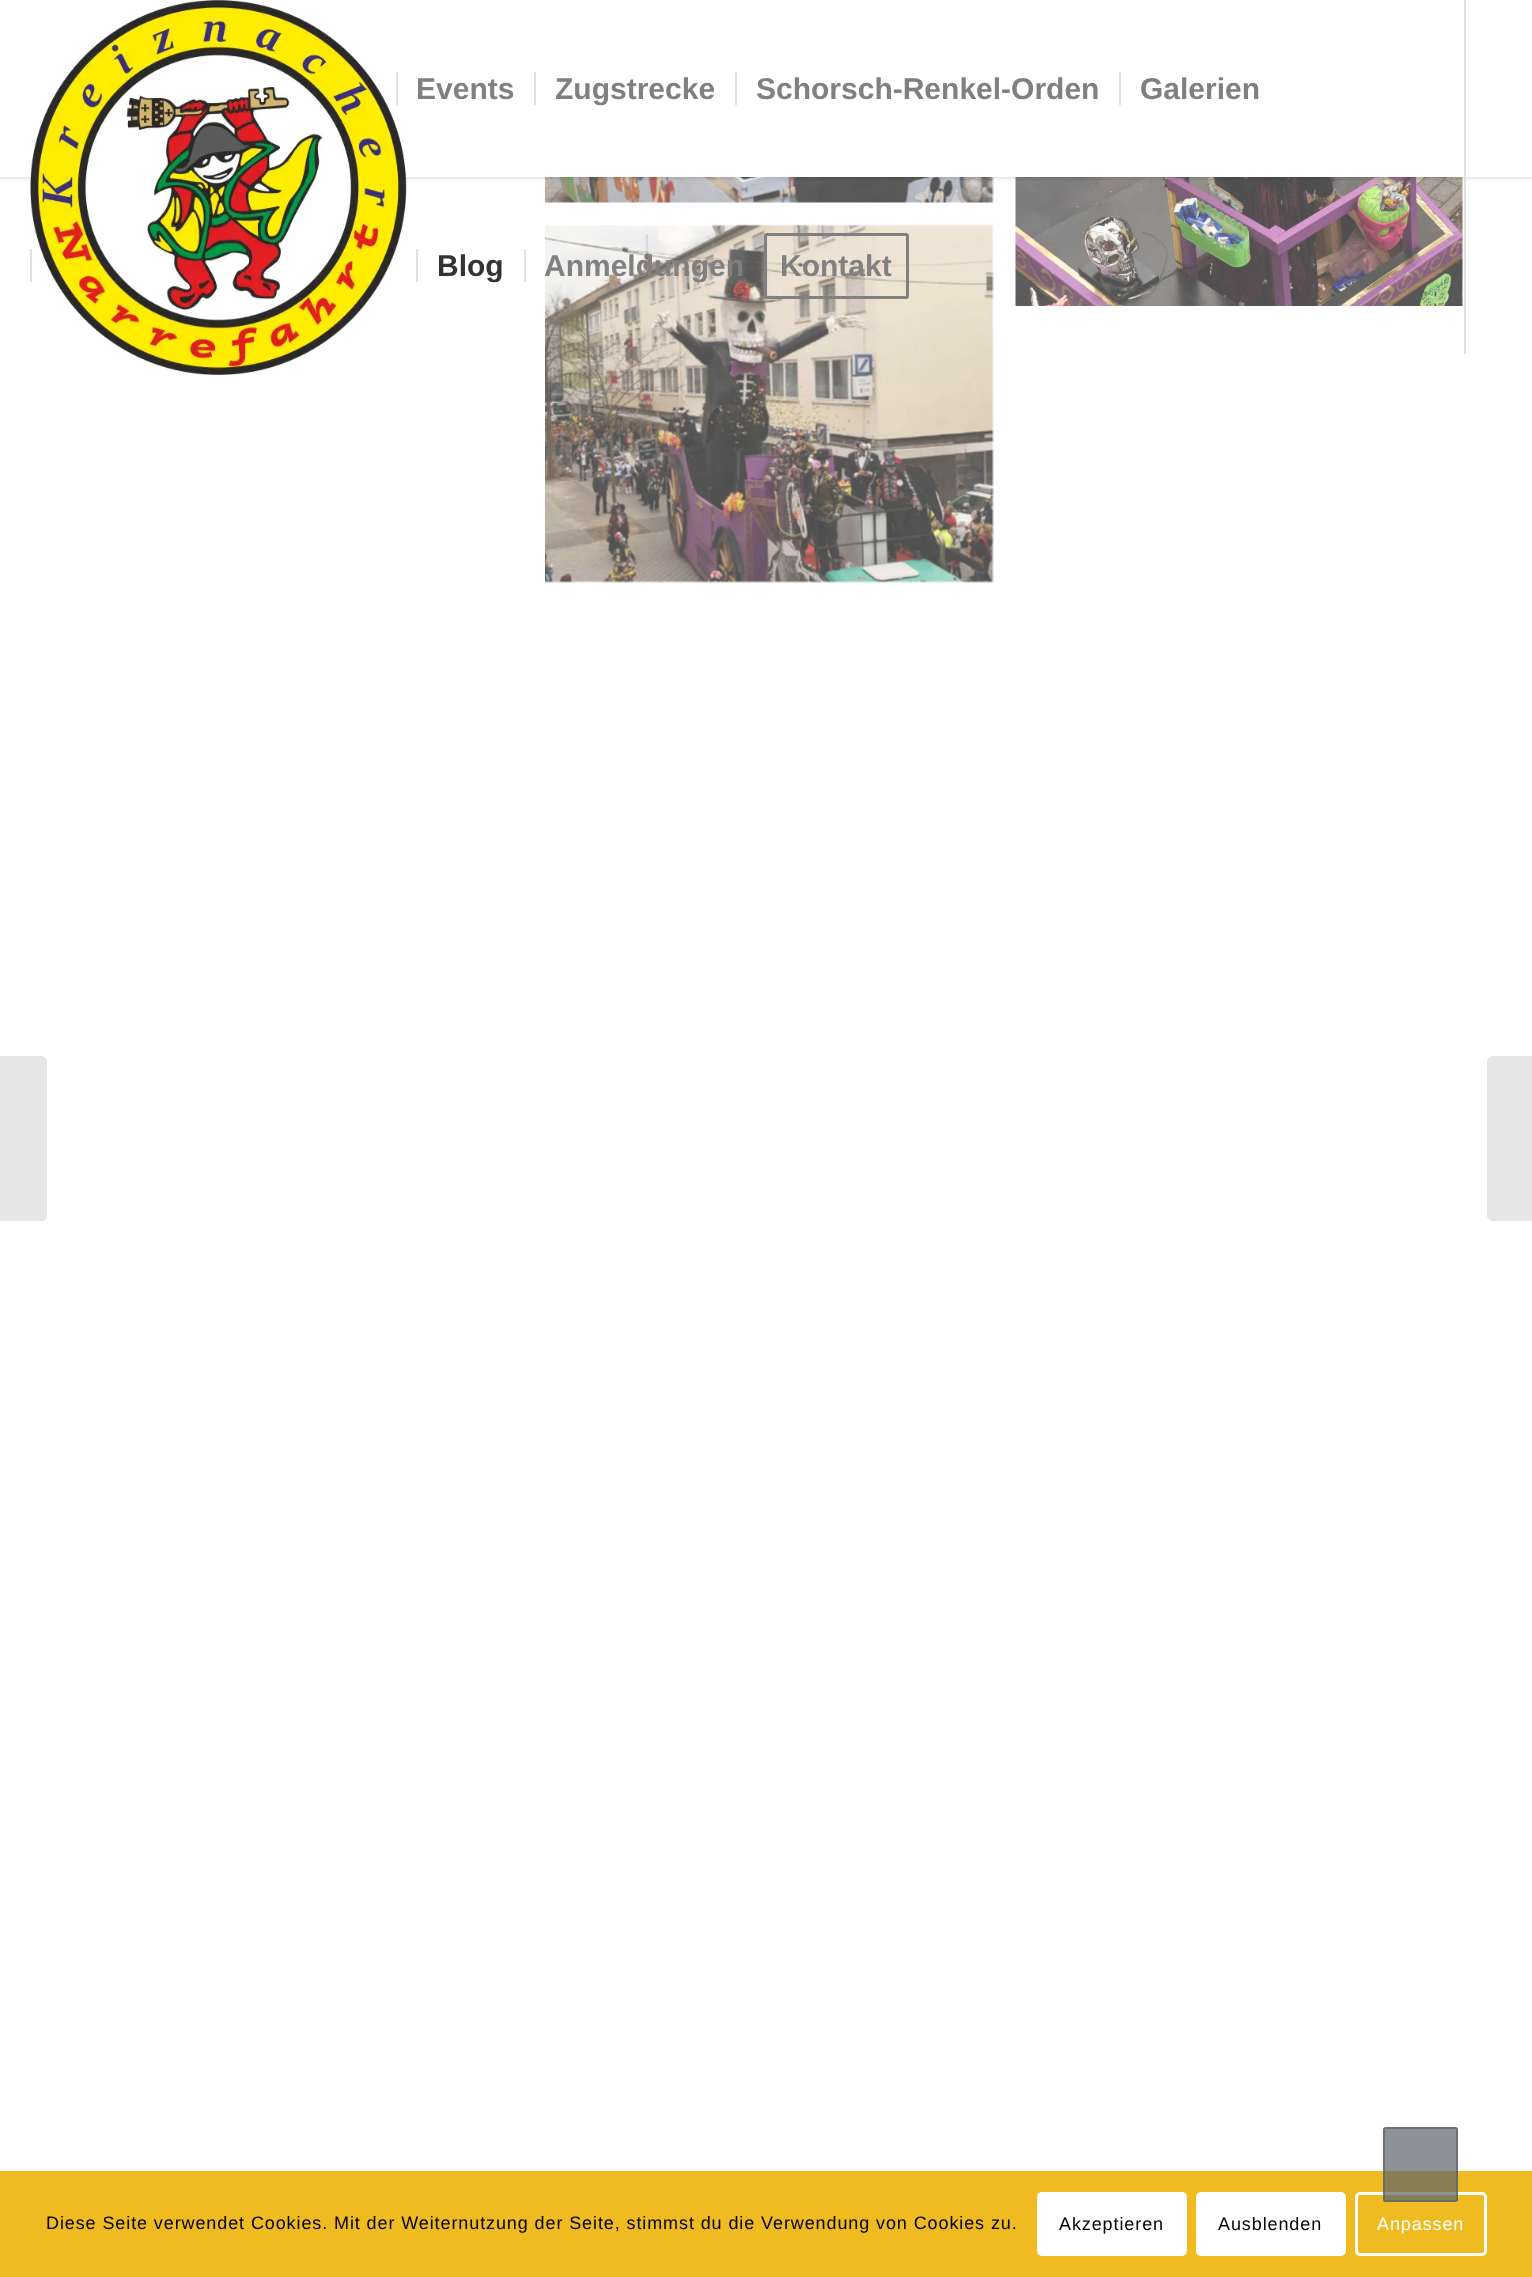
<svg xmlns="http://www.w3.org/2000/svg" width="1532" height="2277">
<rect width="100%" height="100%" fill="#fff"/>
<image x="545" y="177" width="449" height="26" href="media/2.png"/>
<image x="1015" y="177" width="448" height="129" href="media/3.png"/>
<rect x="-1" y="-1" width="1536" height="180" fill="#0000001a" filter="blur(1.5px)"/>
<rect width="1532" height="177" fill="#fff"/>
<rect x="396" y="72" width="2" height="33" fill="#e1e1e1"/>
<rect x="30" y="249" width="2" height="33" fill="#e1e1e1"/>
<image x="30" y="0" width="377" height="375" href="media/1.png"/>
<rect x="1464" width="2" height="354" fill="#e1e1e1"/>
<text x="416" y="99" style="font-family:Liberation Sans;font-size:30px;font-weight:bold;fill:#808080">Events</text>
<text x="555" y="99" style="font-family:Liberation Sans;font-size:30px;font-weight:bold;fill:#808080">Zugstrecke</text>
<rect x="534" y="72" width="2" height="33" fill="#e1e1e1"/>
<text x="756" y="99" style="font-family:Liberation Sans;font-size:30px;font-weight:bold;fill:#808080">Schorsch-Renkel-Orden</text>
<rect x="735" y="72" width="2" height="33" fill="#e1e1e1"/>
<text x="1140" y="99" style="font-family:Liberation Sans;font-size:30px;font-weight:bold;fill:#808080">Galerien</text>
<rect x="1119" y="72" width="2" height="33" fill="#e1e1e1"/>
<text x="437" y="276" style="font-family:Liberation Sans;font-size:30px;font-weight:bold;fill:#333">Blog</text>
<rect x="416" y="249" width="2" height="33" fill="#e1e1e1"/>
<image x="545" y="224" width="449" height="359" href="media/4.png"/>
<text x="544" y="276" style="font-family:Liberation Sans;font-size:30px;font-weight:bold;fill:#808080">Anmeldungen</text>
<rect x="524" y="249" width="2" height="33" fill="#e1e1e1"/>
<rect x="765.5" y="234.5" width="142" height="63" rx="1.5" fill="none" stroke="#808080" stroke-width="3"/>
<text x="780" y="276" style="font-family:Liberation Sans;font-size:30px;font-weight:bold;fill:#808080">Kontakt</text>
<path d="M0 1056h41c3.5 0 6 2.5 6 6v153c0 3.5-2.5 6-6 6h-41z" fill="#e6e6e6"/>
<path d="M1493 1056h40v165h-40c-3.5 0-6-2.5-6-6v-153c0-3.5 2.5-6 6-6z" fill="#e6e6e6"/>
<rect y="2171" width="1532" height="106" fill="#efbb20"/>
<rect x="1356.5" y="2193.5" width="129" height="61" rx="3.5" fill="none" stroke="#fff" stroke-width="3"/>
<rect x="1383" y="2127" width="75" height="75" rx="3" fill="#5b646bb3"/>
<rect x="1384" y="2128" width="73" height="73" rx="2" fill="none" stroke="#5b646bb3" stroke-width="2"/>
<text x="46" y="2229" style="font-family:Liberation Sans;font-size:18px;letter-spacing:0.9px;fill:#000">Diese Seite verwendet Cookies. Mit der Weiternutzung der Seite, stimmst du die Verwendung von Cookies zu.</text>
<rect x="1037" y="2192" width="150" height="64" rx="5" fill="#fff"/>
<text x="1059" y="2230" style="font-family:Liberation Sans;font-size:18px;letter-spacing:0.9px;fill:#000">Akzeptieren</text>
<rect x="1197.5" y="2193.5" width="147" height="61" rx="3.5" fill="#fff" stroke="#fff" stroke-width="3"/>
<text x="1218" y="2230" style="font-family:Liberation Sans;font-size:18px;letter-spacing:0.9px;fill:#000">Ausblenden</text>
<text x="1377" y="2230" style="font-family:Liberation Sans;font-size:18px;letter-spacing:0.9px;fill:#fff">Anpassen</text>
</svg>
